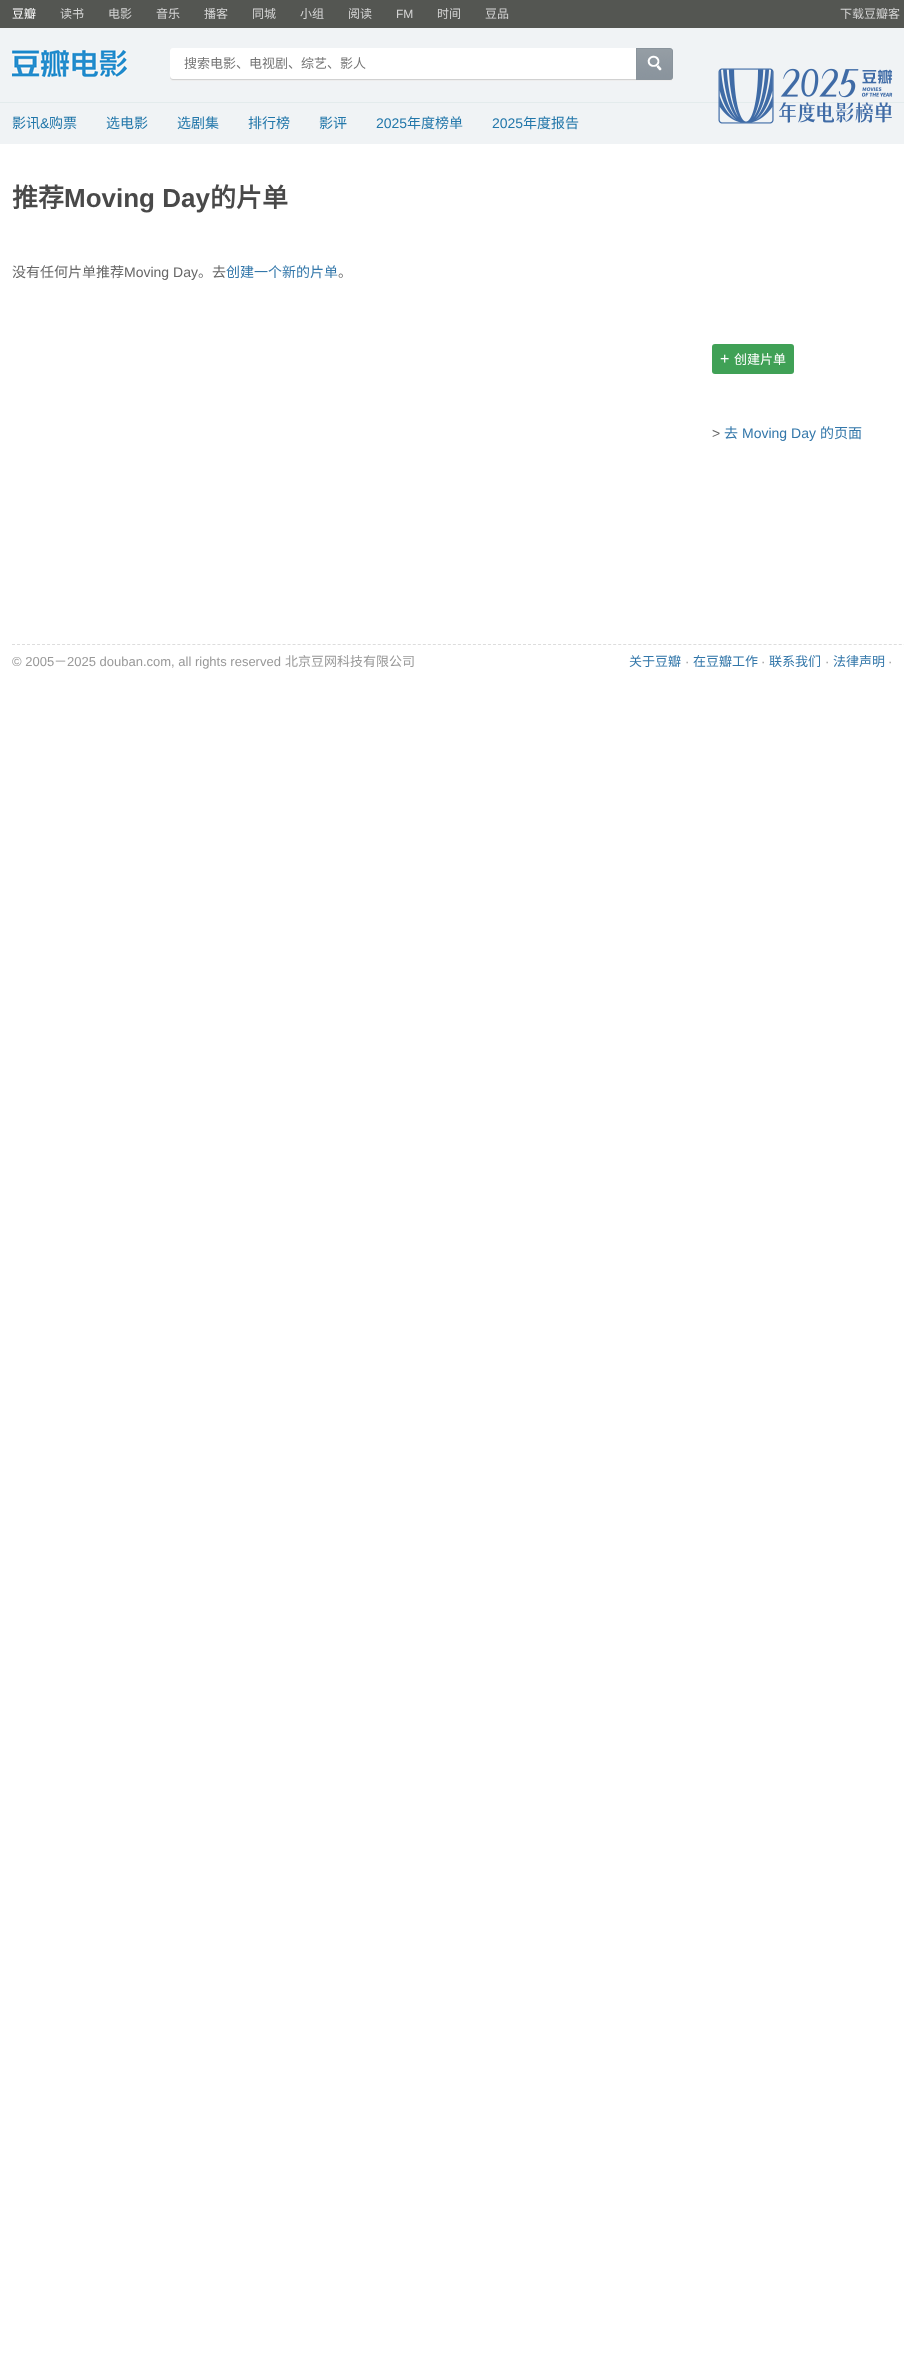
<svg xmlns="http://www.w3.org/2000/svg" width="904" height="2373">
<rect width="100%" height="100%" fill="#fff"/>
<rect width="904" height="28" fill="#545652"/>
<text x="12" y="18" style="font-family:Noto Sans CJK SC;font-size:12px;fill:#fff">豆瓣</text>
<text x="60" y="18" style="font-family:Noto Sans CJK SC;font-size:12px;fill:#d5d5d5">读书</text>
<text x="108" y="18" style="font-family:Noto Sans CJK SC;font-size:12px;fill:#d5d5d5">电影</text>
<text x="156" y="18" style="font-family:Noto Sans CJK SC;font-size:12px;fill:#d5d5d5">音乐</text>
<text x="204" y="18" style="font-family:Noto Sans CJK SC;font-size:12px;fill:#d5d5d5">播客</text>
<text x="252" y="18" style="font-family:Noto Sans CJK SC;font-size:12px;fill:#d5d5d5">同城</text>
<text x="300" y="18" style="font-family:Noto Sans CJK SC;font-size:12px;fill:#d5d5d5">小组</text>
<text x="348" y="18" style="font-family:Noto Sans CJK SC;font-size:12px;fill:#d5d5d5">阅读</text>
<text x="396" y="18" style="font-family:Liberation Sans;font-size:12px;fill:#d5d5d5">FM</text>
<text x="437" y="18" style="font-family:Noto Sans CJK SC;font-size:12px;fill:#d5d5d5">时间</text>
<text x="485" y="18" style="font-family:Noto Sans CJK SC;font-size:12px;fill:#d5d5d5">豆品</text>
<text x="840" y="18" style="font-family:Noto Sans CJK SC;font-size:12px;fill:#d5d5d5">下载豆瓣客</text>
<rect y="28" width="904" height="116" fill="#f0f3f5"/>
<rect y="102" width="904" height="1" fill="#e3ebec"/>
<image x="12" y="50" width="115" height="27" href="media/1.png"/>
<image x="170" y="48" width="466" height="33" href="media/2.png"/>
<text x="184" y="68" style="font-family:Noto Sans CJK SC;font-size:13px;fill:#757575">搜索电影、电视剧、综艺、影人</text>
<image x="636" y="48" width="37" height="33" href="media/3.png"/>
<text x="12" y="128" style="font-family:Noto Sans CJK SC;font-size:14px;fill:#27a">影讯</text>
<text x="40" y="128" style="font-family:Liberation Sans;font-size:14px;fill:#27a">&amp;</text>
<text x="49" y="128" style="font-family:Noto Sans CJK SC;font-size:14px;fill:#27a">购票</text>
<text x="106" y="128" style="font-family:Noto Sans CJK SC;font-size:14px;fill:#27a">选电影</text>
<text x="177" y="128" style="font-family:Noto Sans CJK SC;font-size:14px;fill:#27a">选剧集</text>
<text x="248" y="128" style="font-family:Noto Sans CJK SC;font-size:14px;fill:#27a">排行榜</text>
<text x="319" y="128" style="font-family:Noto Sans CJK SC;font-size:14px;fill:#27a">影评</text>
<text x="376" y="128" style="font-family:Liberation Sans;font-size:14px;fill:#27a">2025</text>
<text x="407" y="128" style="font-family:Noto Sans CJK SC;font-size:14px;fill:#27a">年度榜单</text>
<text x="492" y="128" style="font-family:Liberation Sans;font-size:14px;fill:#27a">2025</text>
<text x="523" y="128" style="font-family:Noto Sans CJK SC;font-size:14px;fill:#27a">年度报告</text>
<image x="718" y="68" width="175" height="56" href="media/4.png"/>
<text x="12" y="207" style="font-family:Noto Sans CJK SC;font-size:26px;font-weight:bold;fill:#494949">推荐</text>
<text x="64" y="207" style="font-family:Liberation Sans;font-size:26px;font-weight:bold;fill:#494949">Moving Day</text>
<text x="210" y="207" style="font-family:Noto Sans CJK SC;font-size:26px;font-weight:bold;fill:#494949">的片单</text>
<text x="12" y="277" style="font-family:Noto Sans CJK SC;font-size:14px;fill:#666">没有任何片单推荐</text>
<text x="124" y="277" style="font-family:Liberation Sans;font-size:14px;fill:#666">Moving Day</text>
<text x="198" y="277" style="font-family:Noto Sans CJK SC;font-size:14px;fill:#666">。去</text>
<text x="226" y="277" style="font-family:Noto Sans CJK SC;font-size:14px;fill:#37a">创建一个新的片单</text>
<text x="338" y="277" style="font-family:Noto Sans CJK SC;font-size:14px;fill:#666">。</text>
<rect x="712" y="344" width="82" height="30" rx="3" fill="#40a156"/>
<text x="720" y="364" style="font-family:Liberation Sans;font-size:16px;fill:#fff">+</text>
<text x="734" y="364" style="font-family:Noto Sans CJK SC;font-size:13px;fill:#fff">创建片单</text>
<text x="712" y="438" style="font-family:Liberation Sans;font-size:14px;fill:#666">&gt;</text>
<text x="724" y="438" style="font-family:Noto Sans CJK SC;font-size:14px;fill:#37a">去</text>
<text x="742" y="438" style="font-family:Liberation Sans;font-size:14px;fill:#37a">Moving Day</text>
<text x="820" y="438" style="font-family:Noto Sans CJK SC;font-size:14px;fill:#37a">的页面</text>
<path d="M12 644.5h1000" fill="none" stroke="#ddd" stroke-dasharray="3 2.01"/>
<text x="12" y="666" style="font-family:Liberation Sans;font-size:13px;fill:#999">© 2005</text>
<text x="54" y="666" style="font-family:Noto Sans CJK SC;font-size:13px;fill:#999">－</text>
<text x="67" y="666" style="font-family:Liberation Sans;font-size:13px;fill:#999">2025 douban.com, all rights reserved</text>
<text x="285" y="666" style="font-family:Noto Sans CJK SC;font-size:13px;fill:#999">北京豆网科技有限公司</text>
<text x="629" y="666" style="font-family:Noto Sans CJK SC;font-size:13px;fill:#37a">关于豆瓣</text>
<text x="685" y="666" style="font-family:Liberation Sans;font-size:13px;fill:#999">·</text>
<text x="693" y="666" style="font-family:Noto Sans CJK SC;font-size:13px;fill:#37a">在豆瓣工作</text>
<text x="761" y="666" style="font-family:Liberation Sans;font-size:13px;fill:#999">·</text>
<text x="769" y="666" style="font-family:Noto Sans CJK SC;font-size:13px;fill:#37a">联系我们</text>
<text x="825" y="666" style="font-family:Liberation Sans;font-size:13px;fill:#999">·</text>
<text x="833" y="666" style="font-family:Noto Sans CJK SC;font-size:13px;fill:#37a">法律声明</text>
<text x="888" y="666" style="font-family:Liberation Sans;font-size:13px;fill:#999">·</text>
</svg>
